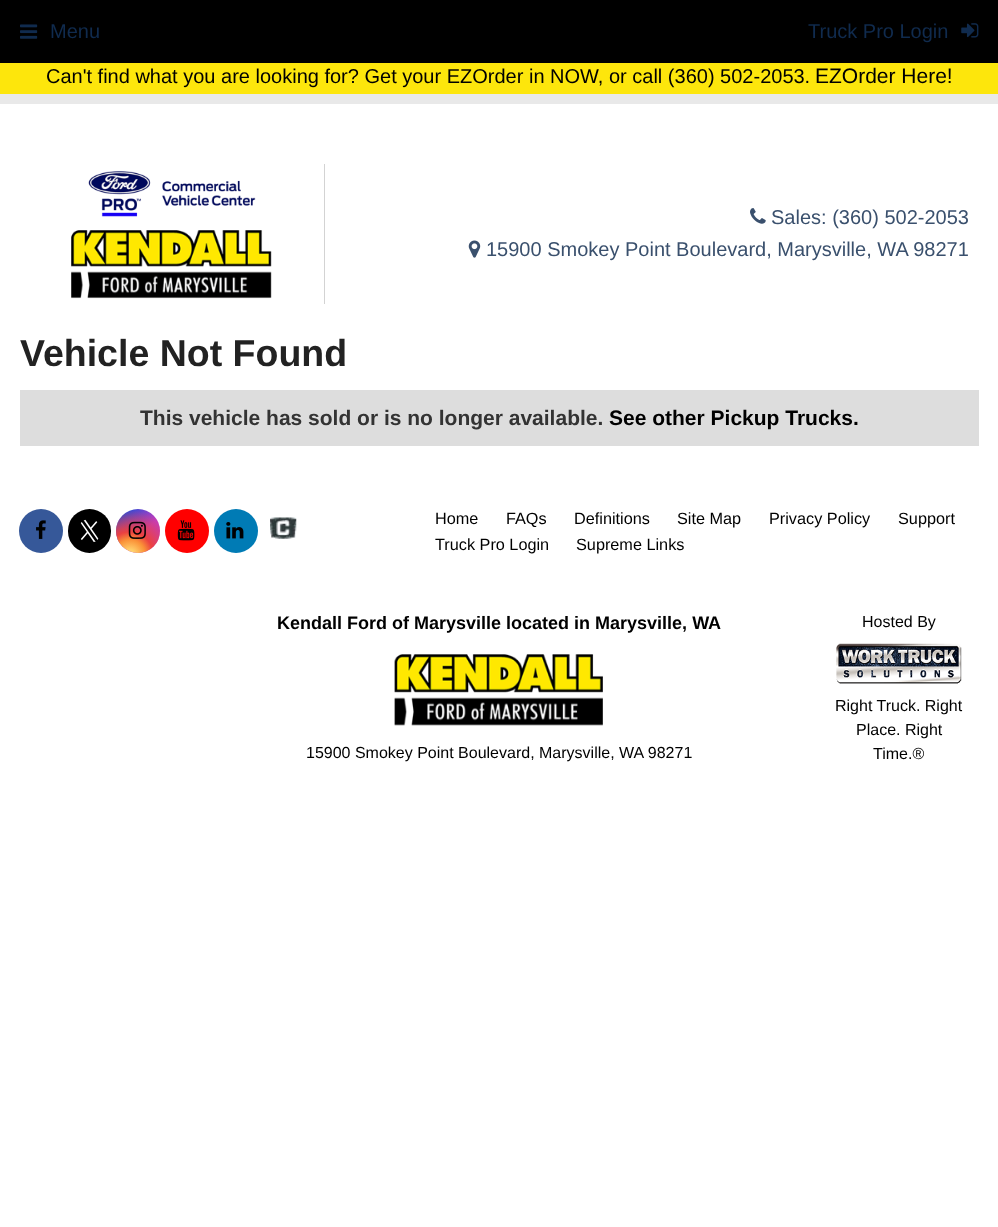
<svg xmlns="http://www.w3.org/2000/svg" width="998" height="1227">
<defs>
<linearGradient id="g1" gradientUnits="userSpaceOnUse" x1="116" y1="509" x2="160" y2="553"><stop offset="0.12" stop-color="#234bd7"/><stop offset="0.58" stop-color="#c33cbe"/></linearGradient>
<radialGradient id="g2" gradientUnits="userSpaceOnUse" cx="130" cy="555" r="55"><stop offset="0" stop-color="#ffe17d"/><stop offset="0.1" stop-color="#ffcd69"/><stop offset="0.28" stop-color="#fa9137"/><stop offset="0.42" stop-color="#eb4141"/><stop offset="0.82" stop-color="#eb4141" stop-opacity="0"/></radialGradient>
</defs>
<rect width="100%" height="100%" fill="#fff"/>
<rect width="998" height="63" fill="#000"/>
<image x="20" y="24" width="18" height="15" href="media/1.png"/>
<text x="50" y="38" style="font-family:Liberation Sans;font-size:20px;fill:#102b4e">Menu</text>
<text x="808" y="38" style="font-family:Liberation Sans;font-size:20px;fill:#102b4e">Truck Pro Login</text>
<image x="961" y="23" width="18" height="15" href="media/2.png"/>
<rect y="94" width="998" height="10" fill="#e9e9e9"/>
<rect y="63" width="998" height="31" fill="#fde60c"/>
<text x="46" y="83" style="font-family:Liberation Sans;font-size:20px;fill:#000">Can't find what you are looking for? Get your EZOrder in NOW, or call (360) 502-2053.</text>
<text x="815" y="83" style="font-family:Liberation Sans;font-size:21px;fill:#000">EZOrder Here!</text>
<rect x="324" y="164" width="1" height="140" fill="#d3d3d3"/>
<image x="88" y="171" width="168" height="46" href="media/3.png"/>
<image x="71" y="230" width="201" height="69" href="media/4.png"/>
<image x="750" y="208" width="16" height="16" href="media/5.png"/>
<text x="771" y="224" style="font-family:Liberation Sans;font-size:20px;fill:#3a506d">Sales: (360) 502-2053</text>
<image x="468" y="240" width="13" height="18" href="media/6.png"/>
<text x="486" y="256" style="font-family:Liberation Sans;font-size:20px;fill:#3a506d">15900 Smokey Point Boulevard, Marysville, WA 98271</text>
<text x="20" y="366" style="font-family:Liberation Sans;font-size:37.5px;font-weight:bold;fill:#222">Vehicle Not Found</text>
<rect x="20" y="390" width="959" height="56" fill="#ddd"/>
<text x="140" y="425" style="font-family:Liberation Sans;font-size:21px;font-weight:bold;fill:#333">This vehicle has sold or is no longer available.</text>
<text x="609" y="425" style="font-family:Liberation Sans;font-size:21px;font-weight:bold;fill:#000">See other Pickup Trucks.</text>
<circle cx="41" cy="531" r="22" fill="#365899"/>
<image x="36" y="520" width="10" height="19" href="media/7.png"/>
<rect x="68" y="509" width="43" height="44" rx="21.5" fill="#000"/>
<image x="80" y="519" width="19" height="23" href="media/8.png"/>
<circle cx="138" cy="531" r="22" fill="url(#g1)"/>
<circle cx="138" cy="531" r="22" fill="url(#g2)"/>
<image x="128" y="521" width="18" height="18" href="media/9.png"/>
<circle cx="187" cy="531" r="22" fill="#f00"/>
<image x="177" y="520" width="18" height="21" href="media/10.png"/>
<circle cx="236" cy="531" r="22" fill="#007bb5"/>
<image x="226" y="522" width="18" height="17" href="media/11.png"/>
<image x="270" y="517" width="27" height="22" href="media/12.png"/>
<text x="435" y="524" style="font-family:Liberation Sans;font-size:16.25px;fill:#000">Home</text>
<text x="506" y="524" style="font-family:Liberation Sans;font-size:16.25px;fill:#000">FAQs</text>
<text x="574" y="524" style="font-family:Liberation Sans;font-size:16.25px;fill:#000">Definitions</text>
<text x="677" y="524" style="font-family:Liberation Sans;font-size:16.25px;fill:#000">Site Map</text>
<text x="769" y="524" style="font-family:Liberation Sans;font-size:16.25px;fill:#000">Privacy Policy</text>
<text x="898" y="524" style="font-family:Liberation Sans;font-size:16.25px;fill:#000">Support</text>
<text x="435" y="550" style="font-family:Liberation Sans;font-size:16.25px;fill:#000">Truck Pro Login</text>
<text x="576" y="550" style="font-family:Liberation Sans;font-size:16.25px;fill:#000">Supreme Links</text>
<text x="277" y="629" style="font-family:Liberation Sans;font-size:18px;font-weight:bold;fill:#000">Kendall Ford of Marysville located in Marysville, WA</text>
<image x="394" y="654" width="209" height="72" href="media/13.png"/>
<text x="306" y="758" style="font-family:Liberation Sans;font-size:16px;fill:#000">15900 Smokey Point Boulevard, Marysville, WA 98271</text>
<text x="862" y="627" style="font-family:Liberation Sans;font-size:16px;fill:#000">Hosted By</text>
<image x="836" y="643" width="126" height="41" href="media/14.png"/>
<text x="835" y="711" style="font-family:Liberation Sans;font-size:16px;fill:#000">Right Truck. Right</text>
<text x="856" y="735" style="font-family:Liberation Sans;font-size:16px;fill:#000">Place. Right</text>
<text x="873" y="759" style="font-family:Liberation Sans;font-size:16px;fill:#000">Time.®</text>
</svg>
